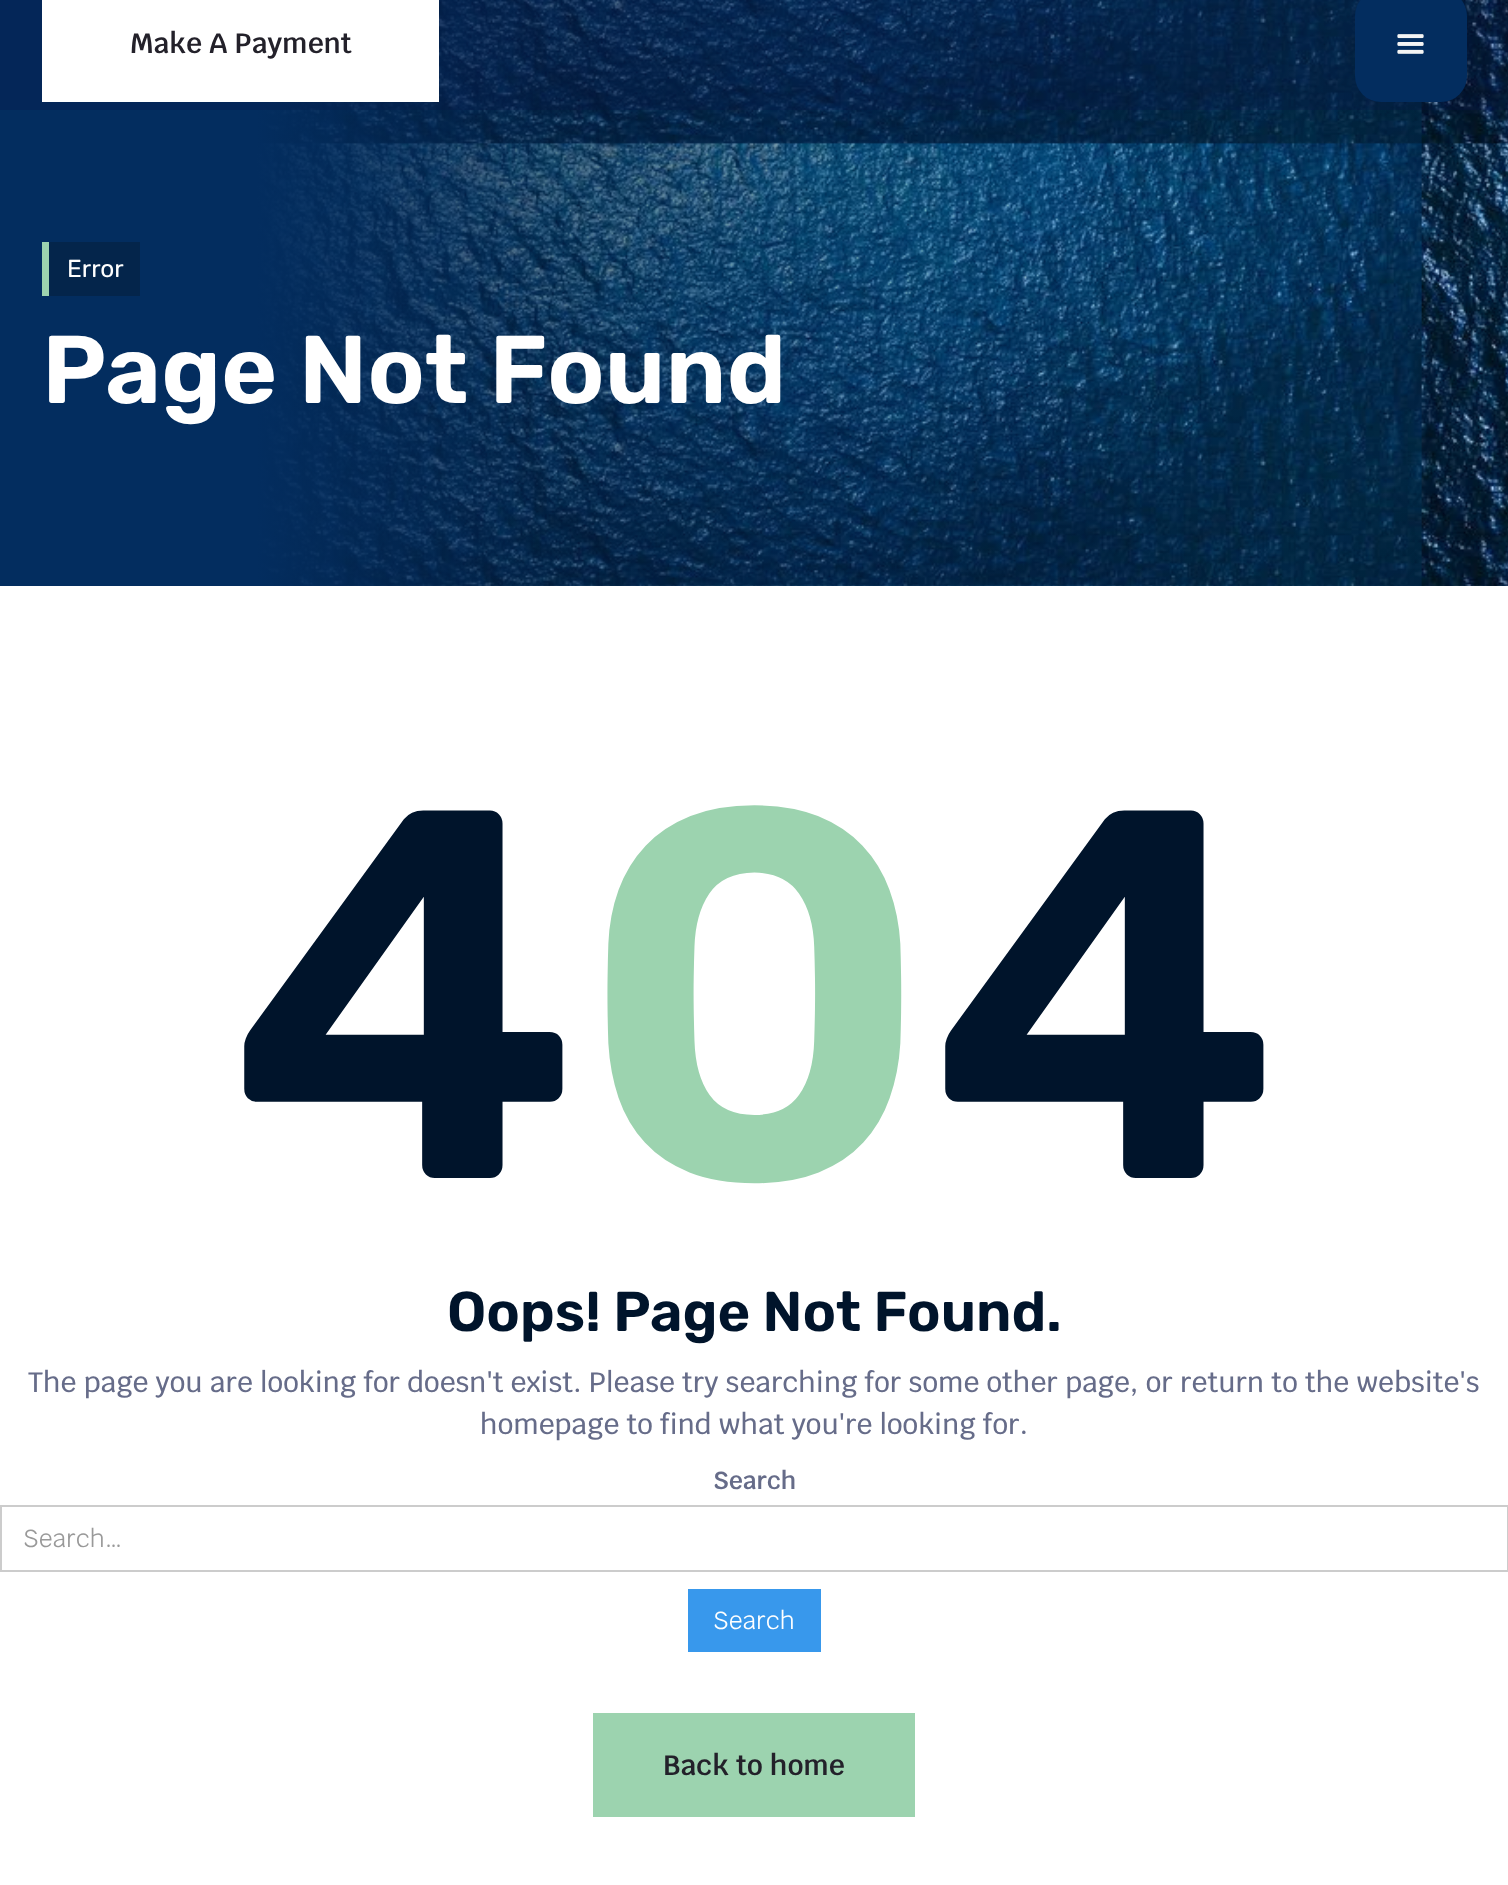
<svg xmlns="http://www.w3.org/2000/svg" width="1508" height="1885">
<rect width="100%" height="100%" fill="#fff"/>
<image x="0" y="0" width="1508" height="586" href="media/2.png"/>
<rect width="1508" height="110" fill="#09124240"/>
<rect x="42" width="397" height="102" fill="#fff"/>
<text x="130" y="53" style="font-family:Krub;font-size:28px;font-weight:600;fill:#23212a">Make A Payment</text>
<rect x="1355" y="-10" width="112" height="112" rx="26" fill="#032d5f"/>
<image x="1397" y="34" width="27" height="20" href="media/1.png"/>
<rect x="49" y="242" width="91" height="54" fill="#04254b"/>
<rect x="42" y="242" width="7" height="54" fill="#9dd3af"/>
<text x="67" y="277" style="font-family:Rubik;font-size:24.5px;fill:#fff">Error</text>
<text x="42" y="403" style="font-family:Rubik;font-size:96.25px;font-weight:600;fill:#fff">Page Not Found</text>
<text x="229" y="1178" style="font-family:Rubik;font-size:525px;font-weight:600;fill:#00142b">4</text>
<text x="579" y="1178" style="font-family:Rubik;font-size:525px;font-weight:600;fill:#9cd3af">0</text>
<text x="930" y="1178" style="font-family:Rubik;font-size:525px;font-weight:600;fill:#00142b">4</text>
<text x="447" y="1331" style="font-family:Rubik;font-size:56px;font-weight:600;fill:#00142b">Oops! Page Not Found.</text>
<text x="28" y="1392" style="font-family:Krub;font-size:28px;font-weight:500;fill:#666c89">The page you are looking for doesn't exist. Please try searching for some other page, or return to the website's</text>
<text x="480" y="1434" style="font-family:Krub;font-size:28px;font-weight:500;fill:#666c89">homepage to find what you're looking for.</text>
<text x="713" y="1489" style="font-family:Krub;font-size:24.5px;font-weight:600;fill:#666c89">Search</text>
<rect x="1" y="1506" width="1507" height="65" fill="none" stroke="#ccc" stroke-width="2"/>
<text x="23" y="1547" style="font-family:Krub;font-size:24.5px;fill:#999">Search…</text>
<rect x="688" y="1589" width="133" height="63" fill="#3898ec"/>
<text x="713" y="1629" style="font-family:Krub;font-size:24.5px;fill:#fff">Search</text>
<rect x="593" y="1713" width="322" height="104" fill="#9cd3af"/>
<text x="663" y="1775" style="font-family:Krub;font-size:28px;font-weight:600;fill:#23212a">Back to home</text>
</svg>
